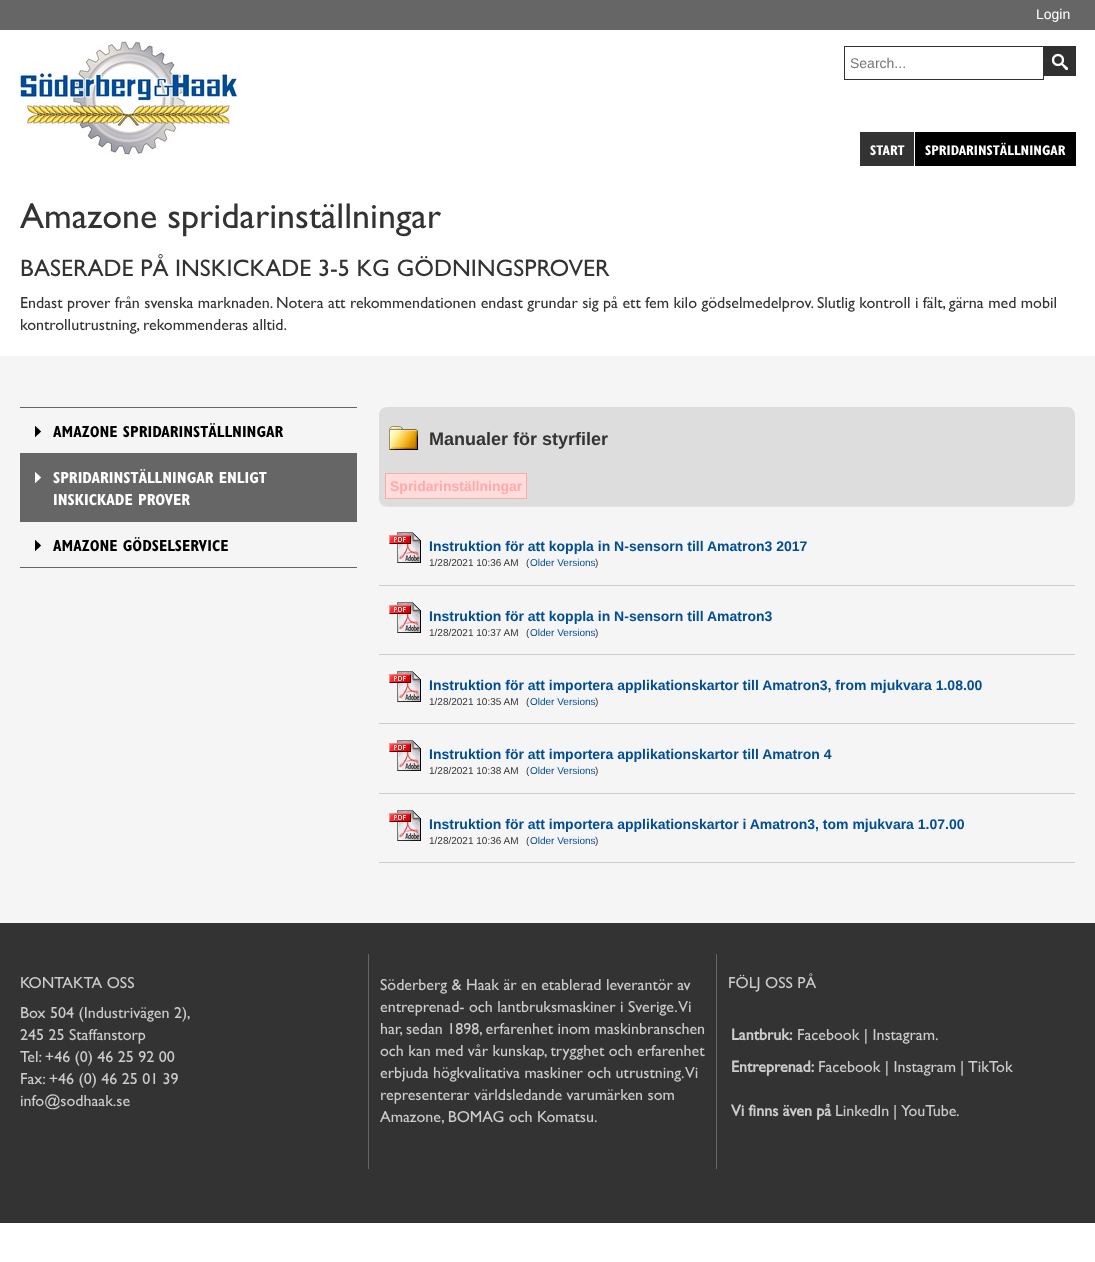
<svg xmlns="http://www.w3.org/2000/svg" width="1095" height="1262">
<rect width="100%" height="100%" fill="#fff"/>
<rect width="1095" height="30" fill="#666"/>
<text x="1036" y="19" style="font-family:Liberation Sans;font-size:14px;fill:#fff">Login</text>
<image x="20" y="41" width="218" height="114" href="media/1.png"/>
<rect x="844.5" y="46.5" width="199" height="33" fill="none" stroke="#333"/>
<text x="850" y="68" style="font-family:Liberation Sans;font-size:14px;fill:#757575">Search...</text>
<image x="1044" y="46" width="32" height="30" href="media/2.png"/>
<text x="1044" y="61" style="font-family:Liberation Sans;font-size:14px;fill:#004c95">.</text>
<rect x="860" y="132" width="54" height="34" fill="#333"/>
<text x="870" y="155" style="font-family:'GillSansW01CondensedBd';font-size:14px;fill:#fff">START</text>
<rect x="915" y="132" width="161" height="34" fill="#000"/>
<text x="925" y="155" style="font-family:'GillSansW01CondensedBd';font-size:14px;fill:#fff">SPRIDARINSTÄLLNINGAR</text>
<text x="20" y="228" style="font-family:Gill Sans;font-size:36px;font-weight:500;fill:#333">Amazone spridarinställningar</text>
<text x="20" y="276" style="font-family:Gill Sans;font-size:24px;font-weight:500;fill:#333">BASERADE PÅ INSKICKADE 3-5 KG GÖDNINGSPROVER</text>
<text x="20" y="308" style="font-family:Gill Sans;font-size:16px;font-weight:500;fill:#333">Endast prover från svenska marknaden. Notera att rekommendationen endast grundar sig på ett fem kilo gödselmedelprov. Slutlig kontroll i fält, gärna med mobil</text>
<text x="20" y="330" style="font-family:Gill Sans;font-size:16px;font-weight:500;fill:#333">kontrollutrustning, rekommenderas alltid.</text>
<rect y="356" width="1095" height="567" fill="#f5f5f5"/>
<rect x="20" y="407" width="337" height="1" fill="#666"/>
<rect x="20" y="453" width="337" height="1" fill="#666"/>
<image x="35" y="426" width="6" height="11" href="media/3.png"/>
<text x="53" y="437" style="font-family:'GillSansW01CondensedBd';font-size:16px;fill:#000">AMAZONE SPRIDARINSTÄLLNINGAR</text>
<rect x="20" y="454" width="337" height="68" fill="#666"/>
<image x="35" y="472" width="6" height="11" href="media/4.png"/>
<text x="53" y="483" style="font-family:'GillSansW01CondensedBd';font-size:16px;fill:#fff">SPRIDARINSTÄLLNINGAR ENLIGT</text>
<text x="53" y="505" style="font-family:'GillSansW01CondensedBd';font-size:16px;fill:#fff">INSKICKADE PROVER</text>
<rect x="20" y="567" width="337" height="1" fill="#666"/>
<image x="35" y="540" width="6" height="11" href="media/3.png"/>
<text x="53" y="551" style="font-family:'GillSansW01CondensedBd';font-size:16px;fill:#000">AMAZONE GÖDSELSERVICE</text>
<path d="M387 407h680c4.5 0 8 3.5 8 8v51h-696v-51c0-4.5 3.5-8 8-8z" fill="#ddd"/>
<image x="389" y="426" width="29" height="24" href="media/5.png"/>
<text x="429" y="445" style="font-family:Liberation Sans;font-size:18px;font-weight:bold;fill:#333">Manualer för styrfiler</text>
<rect x="379" y="467" width="696" height="40" rx="8" fill="#00000012" filter="blur(0.5px)"/>
<path d="M379 466h696v32c0 4.5-3.5 8-8 8h-680c-4.5 0-8-3.5-8-8z" fill="#ddd"/>
<rect x="385.5" y="473.5" width="141" height="25" fill="#fdd" stroke="#faa"/>
<text x="390" y="491" style="font-family:Liberation Sans;font-size:14px;font-weight:bold;fill:#faa">Spridarinställningar</text>
<rect x="379" y="585" width="696" height="1" fill="#ccc"/>
<image x="389" y="532" width="32" height="31" href="media/6.png"/>
<text x="429" y="551" style="font-family:Liberation Sans;font-size:14px;font-weight:bold;fill:#004c95">Instruktion för att koppla in N-sensorn till Amatron3 2017</text>
<text x="429" y="566" style="font-family:Liberation Sans;font-size:10px;fill:#333">1/28/2021 10:36 AM</text>
<text x="526" y="566" style="font-family:Liberation Sans;font-size:10px;fill:#333">(</text>
<text x="530" y="566" style="font-family:Liberation Sans;font-size:10px;fill:#004c95">Older Versions</text>
<text x="595" y="566" style="font-family:Liberation Sans;font-size:10px;fill:#333">)</text>
<rect x="379" y="654" width="696" height="1" fill="#ccc"/>
<image x="389" y="602" width="32" height="31" href="media/6.png"/>
<text x="429" y="621" style="font-family:Liberation Sans;font-size:14px;font-weight:bold;fill:#004c95">Instruktion för att koppla in N-sensorn till Amatron3</text>
<text x="429" y="636" style="font-family:Liberation Sans;font-size:10px;fill:#333">1/28/2021 10:37 AM</text>
<text x="526" y="636" style="font-family:Liberation Sans;font-size:10px;fill:#333">(</text>
<text x="530" y="636" style="font-family:Liberation Sans;font-size:10px;fill:#004c95">Older Versions</text>
<text x="595" y="636" style="font-family:Liberation Sans;font-size:10px;fill:#333">)</text>
<rect x="379" y="723" width="696" height="1" fill="#ccc"/>
<image x="389" y="671" width="32" height="31" href="media/6.png"/>
<text x="429" y="690" style="font-family:Liberation Sans;font-size:14px;font-weight:bold;fill:#004c95">Instruktion för att importera applikationskartor till Amatron3, from mjukvara 1.08.00</text>
<text x="429" y="705" style="font-family:Liberation Sans;font-size:10px;fill:#333">1/28/2021 10:35 AM</text>
<text x="526" y="705" style="font-family:Liberation Sans;font-size:10px;fill:#333">(</text>
<text x="530" y="705" style="font-family:Liberation Sans;font-size:10px;fill:#004c95">Older Versions</text>
<text x="595" y="705" style="font-family:Liberation Sans;font-size:10px;fill:#333">)</text>
<rect x="379" y="793" width="696" height="1" fill="#ccc"/>
<image x="389" y="740" width="32" height="31" href="media/6.png"/>
<text x="429" y="759" style="font-family:Liberation Sans;font-size:14px;font-weight:bold;fill:#004c95">Instruktion för att importera applikationskartor till Amatron 4</text>
<text x="429" y="774" style="font-family:Liberation Sans;font-size:10px;fill:#333">1/28/2021 10:38 AM</text>
<text x="526" y="774" style="font-family:Liberation Sans;font-size:10px;fill:#333">(</text>
<text x="530" y="774" style="font-family:Liberation Sans;font-size:10px;fill:#004c95">Older Versions</text>
<text x="595" y="774" style="font-family:Liberation Sans;font-size:10px;fill:#333">)</text>
<rect x="379" y="862" width="696" height="1" fill="#ccc"/>
<image x="389" y="810" width="32" height="31" href="media/6.png"/>
<text x="429" y="829" style="font-family:Liberation Sans;font-size:14px;font-weight:bold;fill:#004c95">Instruktion för att importera applikationskartor i Amatron3, tom mjukvara 1.07.00</text>
<text x="429" y="844" style="font-family:Liberation Sans;font-size:10px;fill:#333">1/28/2021 10:36 AM</text>
<text x="526" y="844" style="font-family:Liberation Sans;font-size:10px;fill:#333">(</text>
<text x="530" y="844" style="font-family:Liberation Sans;font-size:10px;fill:#004c95">Older Versions</text>
<text x="595" y="844" style="font-family:Liberation Sans;font-size:10px;fill:#333">)</text>
<rect y="923" width="1095" height="300" fill="#333"/>
<text x="20" y="988" style="font-family:Gill Sans;font-size:16px;font-weight:500;fill:#ccc">KONTAKTA OSS</text>
<text x="20" y="1018" style="font-family:Gill Sans;font-size:16px;font-weight:500;fill:#ccc">Box 504 (Industrivägen 2),</text>
<text x="20" y="1040" style="font-family:Gill Sans;font-size:16px;font-weight:500;fill:#ccc">245 25 Staffanstorp</text>
<text x="20" y="1062" style="font-family:Gill Sans;font-size:16px;font-weight:500;fill:#ccc">Tel: +46 (0) 46 25 92 00</text>
<text x="20" y="1084" style="font-family:Gill Sans;font-size:16px;font-weight:500;fill:#ccc">Fax: +46 (0) 46 25 01 39</text>
<text x="20" y="1106" style="font-family:Gill Sans;font-size:16px;font-weight:500;fill:#ccc">info@sodhaak.se</text>
<rect x="368" y="954" width="1" height="215" fill="#666"/>
<text x="380" y="990" style="font-family:Gill Sans;font-size:16px;font-weight:500;fill:#ccc">Söderberg &amp; Haak är en etablerad leverantör av</text>
<text x="380" y="1012" style="font-family:Gill Sans;font-size:16px;font-weight:500;fill:#ccc">entreprenad- och lantbruksmaskiner i Sverige. Vi</text>
<text x="380" y="1034" style="font-family:Gill Sans;font-size:16px;font-weight:500;fill:#ccc">har, sedan 1898, erfarenhet inom maskinbranschen</text>
<text x="380" y="1056" style="font-family:Gill Sans;font-size:16px;font-weight:500;fill:#ccc">och kan med vår kunskap, trygghet och erfarenhet</text>
<text x="380" y="1078" style="font-family:Gill Sans;font-size:16px;font-weight:500;fill:#ccc">erbjuda högkvalitativa maskiner och utrustning. Vi</text>
<text x="380" y="1100" style="font-family:Gill Sans;font-size:16px;font-weight:500;fill:#ccc">representerar världsledande varumärken som</text>
<text x="380" y="1122" style="font-family:Gill Sans;font-size:16px;font-weight:500;fill:#ccc">Amazone, BOMAG och Komatsu.</text>
<rect x="716" y="954" width="1" height="215" fill="#666"/>
<text x="728" y="988" style="font-family:Gill Sans;font-size:16px;font-weight:500;fill:#ccc">FÖLJ OSS PÅ</text>
<text x="731" y="1040" style="font-family:Gill Sans;font-size:16px;font-weight:bold;fill:#ccc">Lantbruk:</text>
<text x="797" y="1040" style="font-family:Gill Sans;font-size:16px;font-weight:500;fill:#ccc">Facebook | Instagram.</text>
<text x="731" y="1072" style="font-family:Gill Sans;font-size:16px;font-weight:bold;fill:#ccc">Entreprenad:</text>
<text x="818" y="1072" style="font-family:Gill Sans;font-size:16px;font-weight:500;fill:#ccc">Facebook | Instagram</text>
<text x="960" y="1072" style="font-family:Gill Sans;font-size:16px;font-weight:500;fill:#ccc">|</text>
<text x="968" y="1072" style="font-family:Gill Sans;font-size:16px;font-weight:500;fill:#ccc">TikTok</text>
<text x="731" y="1116" style="font-family:Gill Sans;font-size:16px;font-weight:bold;fill:#ccc">Vi finns även på</text>
<text x="835" y="1116" style="font-family:Gill Sans;font-size:16px;font-weight:500;fill:#ccc">LinkedIn</text>
<text x="893" y="1116" style="font-family:Gill Sans;font-size:16px;font-weight:500;fill:#ccc">|</text>
<text x="901" y="1116" style="font-family:Gill Sans;font-size:16px;font-weight:500;fill:#ccc">YouTube</text>
<text x="956" y="1116" style="font-family:Gill Sans;font-size:16px;font-weight:500;fill:#ccc">.</text>
</svg>
